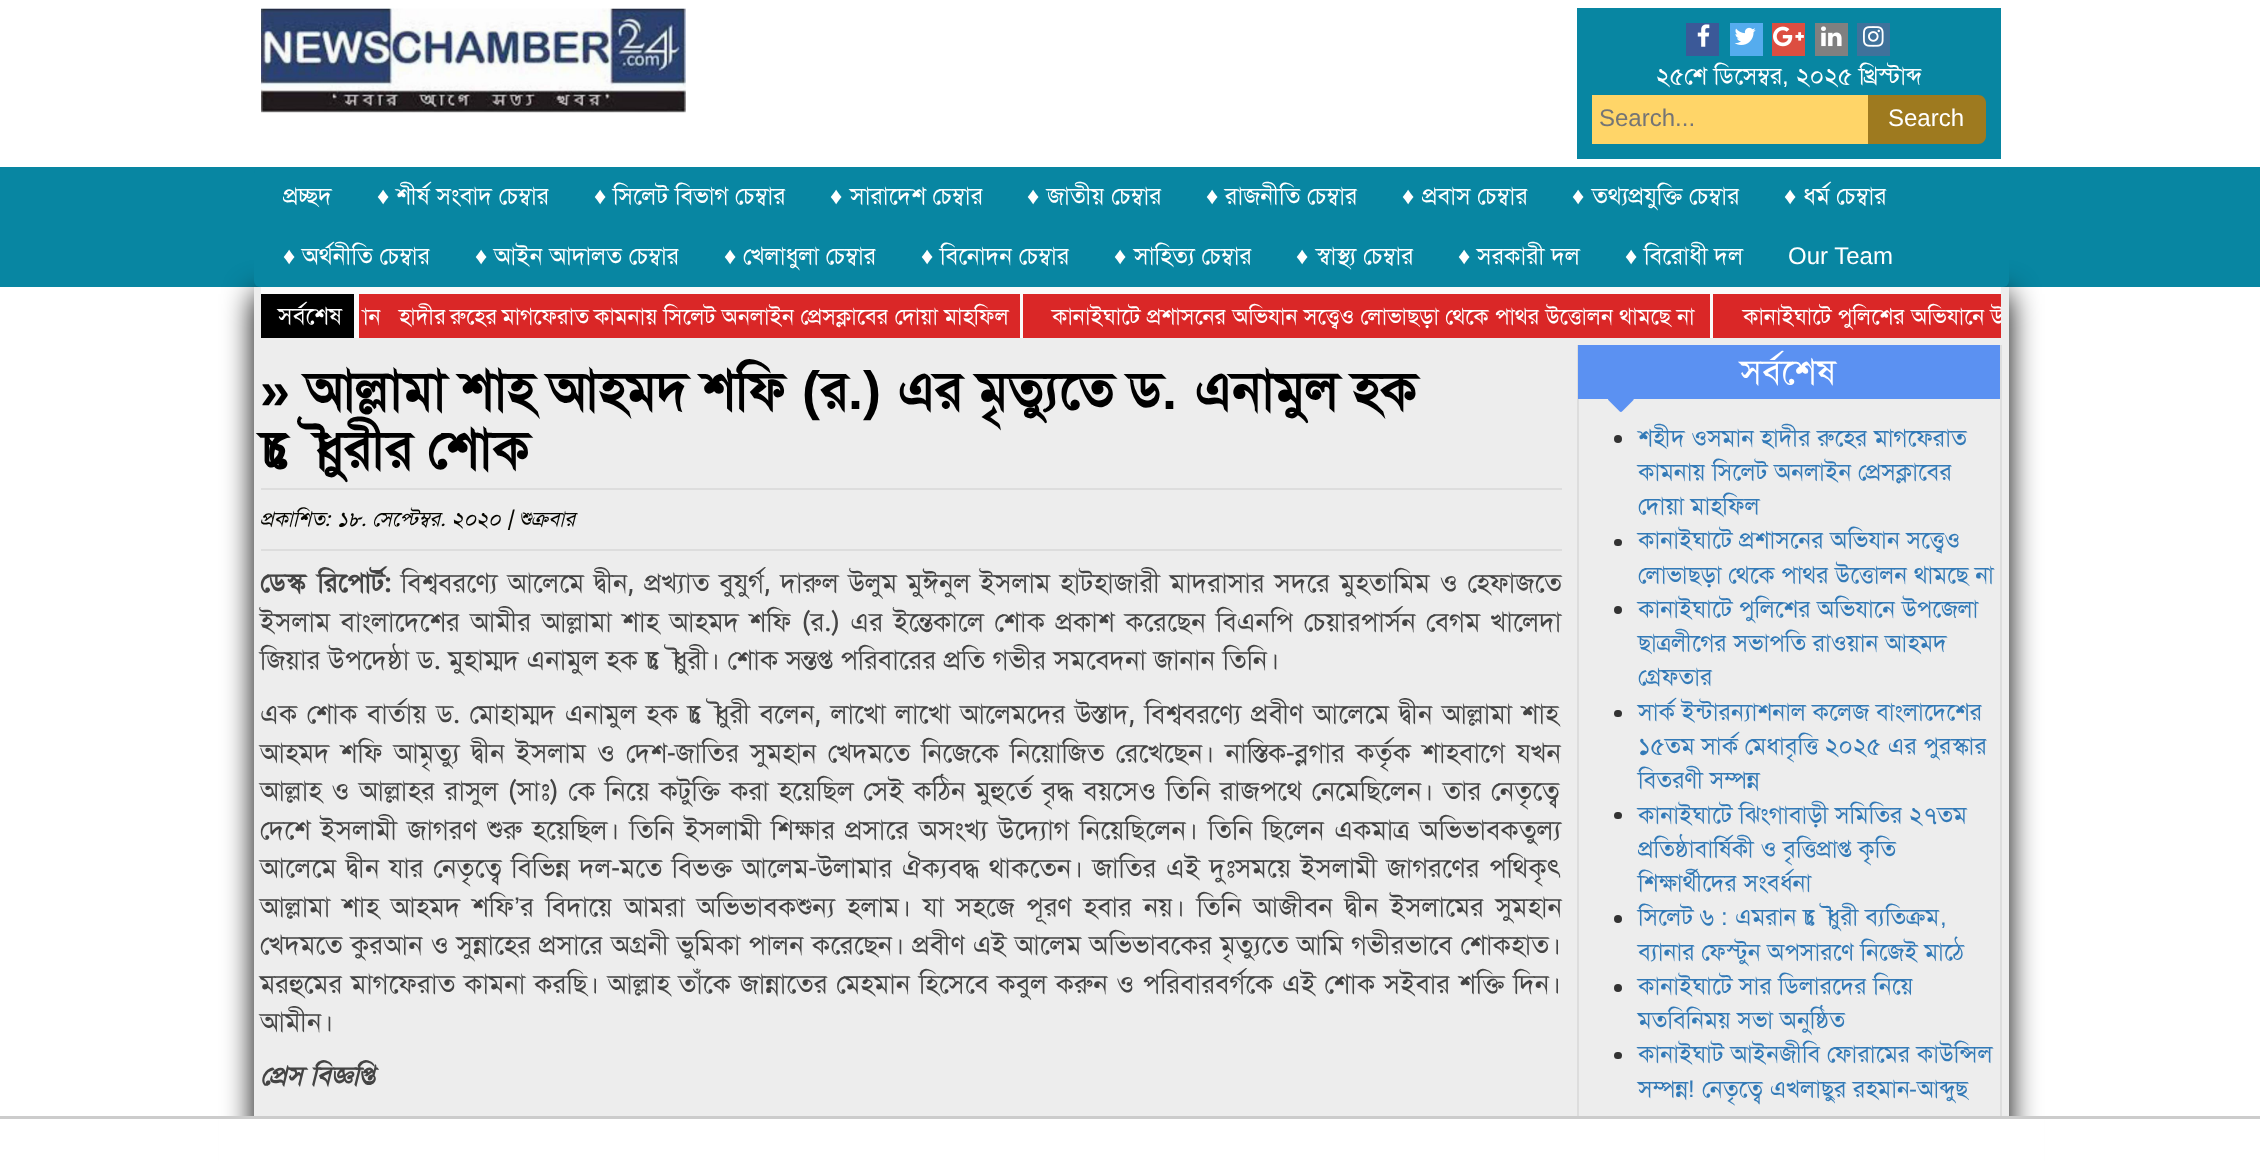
<svg xmlns="http://www.w3.org/2000/svg" width="2260" height="1161">
<defs>
<clipPath id="clip1"><rect x="359" y="294" width="1642" height="44"/></clipPath>
</defs>
<rect width="100%" height="100%" fill="#fff"/>
<image x="261" y="8" width="425" height="105" href="media/1.png"/>
<rect x="1577" y="8" width="424" height="151" fill="#0886a2"/>
<rect x="1686" y="23" width="33" height="33" fill="#3b5998"/>
<image x="1697" y="24" width="13" height="23" href="media/2.png"/>
<rect x="1730" y="23" width="33" height="33" fill="#55acee"/>
<image x="1734" y="27" width="22" height="18" href="media/3.png"/>
<rect x="1772" y="23" width="33" height="33" fill="#dc4e41"/>
<image x="1773" y="26" width="31" height="21" href="media/4.png"/>
<rect x="1815" y="23" width="33" height="33" fill="#808080"/>
<image x="1821" y="26" width="21" height="21" href="media/5.png"/>
<rect x="1857" y="23" width="33" height="33" fill="#3f729b"/>
<image x="1863" y="26" width="21" height="21" href="media/6.png"/>
<text x="1656" y="84" word-spacing="1" style="font-family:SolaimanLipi;font-size:24px;fill:#fff">২৫শে ডিসেম্বর</text>
<text x="1782" y="84" style="font-family:Liberation Sans;font-size:24px;fill:#fff">,</text>
<text x="1796" y="84" word-spacing="1" style="font-family:SolaimanLipi;font-size:24px;fill:#fff">২০২৫ খ্রিস্টাব্দ</text>
<rect x="1592" y="95" width="276" height="49" fill="#ffd568"/>
<text x="1599" y="126" style="font-family:Liberation Sans;font-size:24px;fill:#757575">Search...</text>
<path d="M1868 95h110c4.5 0 8 3.5 8 8v33c0 4.5-3.5 8-8 8h-110z" fill="#9e7a1f"/>
<text x="1888" y="126" style="font-family:Liberation Sans;font-size:24px;fill:#fff">Search</text>
<rect y="167" width="2260" height="120" fill="#0886a2"/>
<rect x="254" y="294" width="1755" height="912" fill="#000" filter="blur(15px)"/>
<rect x="254" y="167" width="1755" height="120" rx="6" fill="#0886a2"/>
<text x="283" y="204" style="font-family:SolaimanLipi;font-size:24px;fill:#fff">প্রচ্ছদ</text>
<text x="377" y="204" style="font-family:Liberation Sans;font-size:24px;fill:#fff">♦</text>
<text x="396" y="204" word-spacing="1" style="font-family:SolaimanLipi;font-size:24px;fill:#fff">শীর্ষ সংবাদ চেম্বার</text>
<text x="594" y="204" style="font-family:Liberation Sans;font-size:24px;fill:#fff">♦</text>
<text x="613" y="204" word-spacing="1" style="font-family:SolaimanLipi;font-size:24px;fill:#fff">সিলেট বিভাগ চেম্বার</text>
<text x="830" y="204" style="font-family:Liberation Sans;font-size:24px;fill:#fff">♦</text>
<text x="850" y="204" word-spacing="1" style="font-family:SolaimanLipi;font-size:24px;fill:#fff">সারাদেশ চেম্বার</text>
<text x="1027" y="204" style="font-family:Liberation Sans;font-size:24px;fill:#fff">♦</text>
<text x="1047" y="204" word-spacing="1" style="font-family:SolaimanLipi;font-size:24px;fill:#fff">জাতীয় চেম্বার</text>
<text x="1206" y="204" style="font-family:Liberation Sans;font-size:24px;fill:#fff">♦</text>
<text x="1225" y="204" word-spacing="1" style="font-family:SolaimanLipi;font-size:24px;fill:#fff">রাজনীতি চেম্বার</text>
<text x="1402" y="204" style="font-family:Liberation Sans;font-size:24px;fill:#fff">♦</text>
<text x="1422" y="204" word-spacing="1" style="font-family:SolaimanLipi;font-size:24px;fill:#fff">প্রবাস চেম্বার</text>
<text x="1572" y="204" style="font-family:Liberation Sans;font-size:24px;fill:#fff">♦</text>
<text x="1592" y="204" word-spacing="1" style="font-family:SolaimanLipi;font-size:24px;fill:#fff">তথ্যপ্রযুক্তি চেম্বার</text>
<text x="1784" y="204" style="font-family:Liberation Sans;font-size:24px;fill:#fff">♦</text>
<text x="1803" y="204" word-spacing="1" style="font-family:SolaimanLipi;font-size:24px;fill:#fff">ধর্ম চেম্বার</text>
<text x="283" y="264" style="font-family:Liberation Sans;font-size:24px;fill:#fff">♦</text>
<text x="302" y="264" word-spacing="1" style="font-family:SolaimanLipi;font-size:24px;fill:#fff">অর্থনীতি চেম্বার</text>
<text x="475" y="264" style="font-family:Liberation Sans;font-size:24px;fill:#fff">♦</text>
<text x="494" y="264" word-spacing="1" style="font-family:SolaimanLipi;font-size:24px;fill:#fff">আইন আদালত চেম্বার</text>
<text x="724" y="264" style="font-family:Liberation Sans;font-size:24px;fill:#fff">♦</text>
<text x="743" y="264" word-spacing="1" style="font-family:SolaimanLipi;font-size:24px;fill:#fff">খেলাধুলা চেম্বার</text>
<text x="921" y="264" style="font-family:Liberation Sans;font-size:24px;fill:#fff">♦</text>
<text x="940" y="264" word-spacing="1" style="font-family:SolaimanLipi;font-size:24px;fill:#fff">বিনোদন চেম্বার</text>
<text x="1114" y="264" style="font-family:Liberation Sans;font-size:24px;fill:#fff">♦</text>
<text x="1134" y="264" word-spacing="1" style="font-family:SolaimanLipi;font-size:24px;fill:#fff">সাহিত্য চেম্বার</text>
<text x="1296" y="264" style="font-family:Liberation Sans;font-size:24px;fill:#fff">♦</text>
<text x="1316" y="264" word-spacing="1" style="font-family:SolaimanLipi;font-size:24px;fill:#fff">স্বাস্থ্য চেম্বার</text>
<text x="1458" y="264" style="font-family:Liberation Sans;font-size:24px;fill:#fff">♦</text>
<text x="1477" y="264" word-spacing="1" style="font-family:SolaimanLipi;font-size:24px;fill:#fff">সরকারী দল</text>
<text x="1625" y="264" style="font-family:Liberation Sans;font-size:24px;fill:#fff">♦</text>
<text x="1644" y="264" word-spacing="1" style="font-family:SolaimanLipi;font-size:24px;fill:#fff">বিরোধী দল</text>
<text x="1788" y="264" style="font-family:Liberation Sans;font-size:24px;fill:#fff">Our Team</text>
<rect x="254" y="287" width="1755" height="829" fill="#ededed"/>
<rect x="261" y="287" width="1740" height="51" fill="#fafafa"/>
<rect x="261" y="294" width="93" height="44" fill="#000"/>
<text x="278" y="324" style="font-family:SolaimanLipi;font-size:24px;fill:#fff">সর্বশেষ</text>
<rect x="359" y="294" width="661" height="44" fill="#da2727"/>
<text x="363" y="324" word-spacing="1" style="font-family:SolaimanLipi;font-size:22.5px;fill:#fff">ান</text>
<text x="399" y="324" word-spacing="1" style="font-family:SolaimanLipi;font-size:22.5px;fill:#fff">হাদীর</text>
<text x="450" y="324" word-spacing="1" style="font-family:SolaimanLipi;font-size:22.5px;fill:#fff">রুহের</text>
<text x="502" y="324" word-spacing="1" style="font-family:SolaimanLipi;font-size:22.5px;fill:#fff">মাগফেরাত</text>
<text x="594" y="324" word-spacing="1" style="font-family:SolaimanLipi;font-size:22.5px;fill:#fff">কামনায় সিলেট অনলাইন প্রেসক্লাবের দোয়া মাহফিল</text>
<rect x="1023" y="294" width="687" height="44" fill="#da2727"/>
<text x="1052" y="324" word-spacing="1" style="font-family:SolaimanLipi;font-size:22.5px;fill:#fff">কানাইঘাটে প্রশাসনের অভিযান সত্ত্বেও লোভাছড়া থেকে পাথর উত্তোলন থামছে না</text>
<rect x="1713" y="294" width="288" height="44" fill="#da2727"/>
<g clip-path="url(#clip1)">
<text x="1743" y="324" word-spacing="1" style="font-family:SolaimanLipi;font-size:22.5px;fill:#fff">কানাইঘাটে পুলিশের অভিযানে উ</text>
</g>
<rect x="261" y="488" width="1301" height="2" fill="#ddd"/>
<text x="260" y="409" style="font-family:Liberation Sans;font-size:54px;font-weight:bold;fill:#000">»</text>
<text x="305" y="409" word-spacing="1.5" style="font-family:SolaimanLipi;font-size:54px;font-weight:bold;fill:#000">আল্লামা শাহ আহমদ শফি</text>
<text x="802" y="409" style="font-family:Liberation Sans;font-size:54px;font-weight:bold;fill:#000">(</text>
<text x="820" y="409" style="font-family:SolaimanLipi;font-size:54px;font-weight:bold;fill:#000">র</text>
<text x="848" y="409" style="font-family:Liberation Sans;font-size:54px;font-weight:bold;fill:#000">.)</text>
<text x="897" y="409" word-spacing="1.5" style="font-family:SolaimanLipi;font-size:54px;font-weight:bold;fill:#000">এর মৃত্যুতে ড</text>
<text x="1162" y="409" style="font-family:Liberation Sans;font-size:54px;font-weight:bold;fill:#000">.</text>
<text x="1194" y="409" word-spacing="1.5" style="font-family:SolaimanLipi;font-size:54px;font-weight:bold;fill:#000">এনামুল হক</text>
<text x="260" y="468" word-spacing="2" style="font-family:SolaimanLipi;font-size:54px;font-weight:bold;fill:#000">চৌধুরীর শোক</text>
<rect x="261" y="549" width="1301" height="2" fill="#ddd"/>
<text x="260" y="526" style="font-family:SolaimanLipi;font-size:21px;font-style:italic;fill:#060600">প্রকাশিত:</text>
<text x="337" y="526" word-spacing="1" style="font-family:SolaimanLipi;font-size:21px;font-style:italic;fill:#060600">১৮. সেপ্টেম্বর. ২০২০ | শুক্রবার</text>
<text x="260" y="592" word-spacing="6" style="font-family:SolaimanLipi;font-size:27px;font-weight:bold;fill:#444">ডেস্ক রিপোর্ট:</text>
<text x="401" y="592" word-spacing="3.5" style="font-family:SolaimanLipi;font-size:27px;fill:#444">বিশ্ববরণ্যে আলেমে দ্বীন, প্রখ্যাত বুযুর্গ, দারুল উলুম মুঈনুল ইসলাম হাটহাজারী মাদরাসার সদরে মুহতামিম ও হেফাজতে</text>
<text x="260" y="631" word-spacing="4" style="font-family:SolaimanLipi;font-size:27px;fill:#444">ইসলাম বাংলাদেশের আমীর আল্লামা শাহ আহমদ শফি (র.) এর ইন্তেকালে শোক প্রকাশ করেছেন বিএনপি চেয়ারপার্সন বেগম খালেদা</text>
<text x="260" y="669" word-spacing="1.25" style="font-family:SolaimanLipi;font-size:27px;fill:#444">জিয়ার উপদেষ্ঠা ড. মুহাম্মদ এনামুল হক চৌধুরী। শোক সন্তপ্ত পরিবারের প্রতি গভীর সমবেদনা জানান তিনি।</text>
<text x="260" y="723" word-spacing="3.1" style="font-family:SolaimanLipi;font-size:27px;fill:#444">এক শোক বার্তায় ড. মোহাম্মদ এনামুল হক চৌধুরী বলেন, লাখো লাখো আলেমদের উস্তাদ, বিশ্ববরণ্যে প্রবীণ আলেমে দ্বীন আল্লামা শাহ</text>
<text x="260" y="762" word-spacing="4.75" style="font-family:SolaimanLipi;font-size:27px;fill:#444">আহমদ শফি আমৃত্যু দ্বীন ইসলাম ও দেশ-জাতির সুমহান খেদমতে নিজেকে নিয়োজিত রেখেছেন। নাস্তিক-ব্লগার কর্তৃক শাহবাগে যখন</text>
<text x="260" y="800" word-spacing="3.25" style="font-family:SolaimanLipi;font-size:27px;fill:#444">আল্লাহ ও আল্লাহর রাসুল (সাঃ) কে নিয়ে কটুক্তি করা হয়েছিল সেই কঠিন মুহুর্তে বৃদ্ধ বয়সেও তিনি রাজপথে নেমেছিলেন। তার নেতৃত্বে</text>
<text x="260" y="839" word-spacing="3.6" style="font-family:SolaimanLipi;font-size:27px;fill:#444">দেশে ইসলামী জাগরণ শুরু হয়েছিল। তিনি ইসলামী শিক্ষার প্রসারে অসংখ্য উদ্যোগ নিয়েছিলেন। তিনি ছিলেন একমাত্র অভিভাবকতুল্য</text>
<text x="260" y="877" word-spacing="3.1" style="font-family:SolaimanLipi;font-size:27px;fill:#444">আলেমে দ্বীন যার নেতৃত্বে বিভিন্ন দল-মতে বিভক্ত আলেম-উলামার ঐক্যবদ্ধ থাকতেন। জাতির এই দুঃসময়ে ইসলামী জাগরণের পথিকৃৎ</text>
<text x="260" y="916" word-spacing="5.4" style="font-family:SolaimanLipi;font-size:27px;fill:#444">আল্লামা শাহ আহমদ শফি</text>
<text x="514" y="916" style="font-family:Liberation Sans;font-size:27px;fill:#444">’</text>
<text x="520" y="916" word-spacing="5.4" style="font-family:SolaimanLipi;font-size:27px;fill:#444">র বিদায়ে আমরা অভিভাবকশুন্য হলাম। যা সহজে পূরণ হবার নয়। তিনি আজীবন দ্বীন ইসলামের সুমহান</text>
<text x="260" y="954" word-spacing="1.6" style="font-family:SolaimanLipi;font-size:27px;fill:#444">খেদমতে কুরআন ও সুন্নাহের প্রসারে অগ্রনী ভুমিকা পালন করেছেন। প্রবীণ এই আলেম অভিভাবকের মৃত্যুতে আমি গভীরভাবে শোকহাত।</text>
<text x="260" y="993" word-spacing="2.25" style="font-family:SolaimanLipi;font-size:27px;fill:#444">মরহুমের মাগফেরাত কামনা করছি। আল্লাহ তাঁকে জান্নাতের মেহমান হিসেবে কবুল করুন ও পরিবারবর্গকে এই শোক সইবার শক্তি দিন।</text>
<text x="260" y="1031" style="font-family:SolaimanLipi;font-size:27px;fill:#444">আমীন।</text>
<text x="260" y="1085" word-spacing="1" style="font-family:SolaimanLipi;font-size:27px;font-weight:bold;font-style:italic;fill:#444">প্রেস বিজ্ঞপ্তি</text>
<rect x="2000" y="345" width="2" height="771" fill="#ddd"/>
<rect x="1577" y="345" width="2" height="771" fill="#ddd"/>
<rect x="1578" y="345" width="422" height="54" fill="#5b91f2"/>
<text x="1740" y="384" style="font-family:SolaimanLipi;font-size:36px;fill:#fff">সর্বশেষ</text>
<image x="1608" y="399" width="26" height="13" href="media/7.png"/>
<circle cx="1618" cy="439" r="4" fill="#333"/>
<text x="1638" y="446" word-spacing="1" style="font-family:SolaimanLipi;font-size:24px;fill:#337ab7">শহীদ ওসমান হাদীর রুহের মাগফেরাত</text>
<text x="1638" y="480" word-spacing="1" style="font-family:SolaimanLipi;font-size:24px;fill:#337ab7">কামনায় সিলেট অনলাইন প্রেসক্লাবের</text>
<text x="1638" y="514" word-spacing="1" style="font-family:SolaimanLipi;font-size:24px;fill:#337ab7">দোয়া মাহফিল</text>
<rect x="1614" y="539" width="8" height="7" rx="3.5" fill="#333"/>
<text x="1638" y="548" word-spacing="1" style="font-family:SolaimanLipi;font-size:24px;fill:#337ab7">কানাইঘাটে প্রশাসনের অভিযান সত্ত্বেও</text>
<text x="1638" y="583" word-spacing="1" style="font-family:SolaimanLipi;font-size:24px;fill:#337ab7">লোভাছড়া থেকে পাথর উত্তোলন থামছে না</text>
<circle cx="1618" cy="610" r="4" fill="#333"/>
<text x="1638" y="617" word-spacing="1" style="font-family:SolaimanLipi;font-size:24px;fill:#337ab7">কানাইঘাটে পুলিশের অভিযানে উপজেলা</text>
<text x="1638" y="651" word-spacing="1" style="font-family:SolaimanLipi;font-size:24px;fill:#337ab7">ছাত্রলীগের সভাপতি রাওয়ান আহমদ</text>
<text x="1638" y="685" style="font-family:SolaimanLipi;font-size:24px;fill:#337ab7">গ্রেফতার</text>
<rect x="1614" y="710" width="8" height="7" rx="3.5" fill="#333"/>
<text x="1638" y="720" word-spacing="1" style="font-family:SolaimanLipi;font-size:24px;fill:#337ab7">সার্ক ইন্টারন্যাশনাল কলেজ বাংলাদেশের</text>
<text x="1638" y="754" word-spacing="1" style="font-family:SolaimanLipi;font-size:24px;fill:#337ab7">১৫তম সার্ক মেধাবৃত্তি ২০২৫ এর পুরস্কার</text>
<text x="1638" y="788" word-spacing="1" style="font-family:SolaimanLipi;font-size:24px;fill:#337ab7">বিতরণী সম্পন্ন</text>
<rect x="1614" y="812" width="8" height="7" rx="3.5" fill="#333"/>
<text x="1638" y="823" word-spacing="1" style="font-family:SolaimanLipi;font-size:24px;fill:#337ab7">কানাইঘাটে ঝিংগাবাড়ী সমিতির ২৭তম</text>
<text x="1638" y="857" word-spacing="1" style="font-family:SolaimanLipi;font-size:24px;fill:#337ab7">প্রতিষ্ঠাবার্ষিকী ও বৃত্তিপ্রাপ্ত কৃতি</text>
<text x="1638" y="891" word-spacing="1" style="font-family:SolaimanLipi;font-size:24px;fill:#337ab7">শিক্ষার্থীদের সংবর্ধনা</text>
<circle cx="1618" cy="919" r="4" fill="#333"/>
<text x="1638" y="925" word-spacing="1" style="font-family:SolaimanLipi;font-size:24px;fill:#337ab7">সিলেট ৬</text>
<text x="1721" y="925" style="font-family:Liberation Sans;font-size:24px;fill:#337ab7">:</text>
<text x="1735" y="925" word-spacing="1" style="font-family:SolaimanLipi;font-size:24px;fill:#337ab7">এমরান চৌধুরী ব্যতিক্রম</text>
<text x="1940" y="925" style="font-family:Liberation Sans;font-size:24px;fill:#337ab7">,</text>
<text x="1638" y="960" word-spacing="1" style="font-family:SolaimanLipi;font-size:24px;fill:#337ab7">ব্যানার ফেস্টুন অপসারণে নিজেই মাঠে</text>
<circle cx="1618" cy="988" r="4" fill="#333"/>
<text x="1638" y="994" word-spacing="1" style="font-family:SolaimanLipi;font-size:24px;fill:#337ab7">কানাইঘাটে সার ডিলারদের নিয়ে</text>
<text x="1638" y="1028" word-spacing="1" style="font-family:SolaimanLipi;font-size:24px;fill:#337ab7">মতবিনিময় সভা অনুষ্ঠিত</text>
<rect x="1614" y="1052" width="8" height="7" rx="3.5" fill="#333"/>
<text x="1638" y="1062" word-spacing="1" style="font-family:SolaimanLipi;font-size:24px;fill:#337ab7">কানাইঘাট আইনজীবি ফোরামের কাউন্সিল</text>
<text x="1638" y="1097" style="font-family:SolaimanLipi;font-size:24px;fill:#337ab7">সম্পন্ন</text>
<text x="1688" y="1097" style="font-family:Liberation Sans;font-size:24px;fill:#337ab7">!</text>
<text x="1702" y="1097" word-spacing="1" style="font-family:SolaimanLipi;font-size:24px;fill:#337ab7">নেতৃত্বে এখলাছুর রহমান</text>
<text x="1909" y="1097" style="font-family:Liberation Sans;font-size:24px;fill:#337ab7">-</text>
<text x="1917" y="1097" style="font-family:SolaimanLipi;font-size:24px;fill:#337ab7">আব্দুছ</text>
<rect x="219" y="1119" width="1825" height="42" fill="#fff"/>
<rect y="1116" width="2260" height="3" fill="#ccc"/>
</svg>
